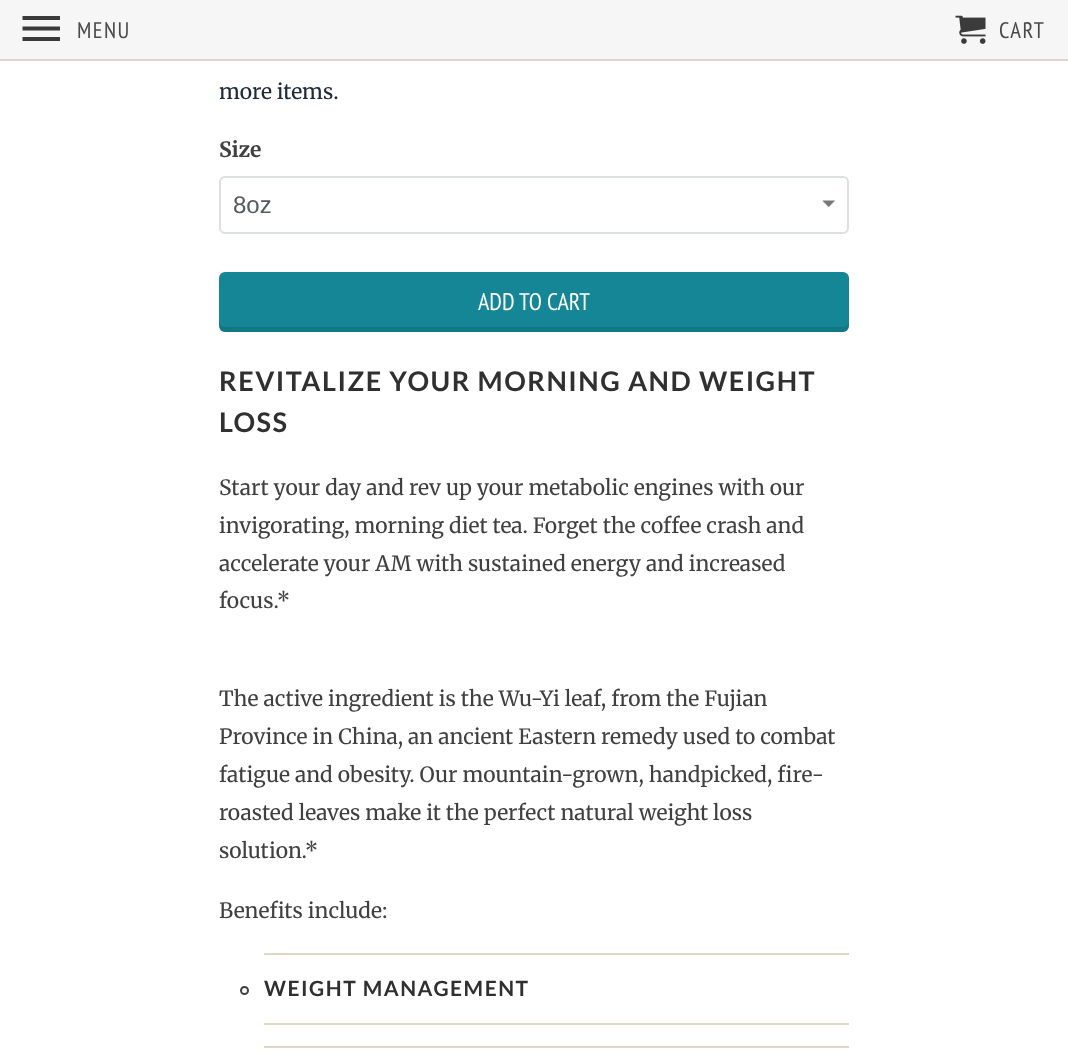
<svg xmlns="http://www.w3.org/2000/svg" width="1068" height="1057">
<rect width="100%" height="100%" fill="#fff"/>
<rect width="1068" height="60" fill="#f5f5f5f2"/>
<rect y="59" width="1068" height="2" fill="#ded6c7f2"/>
<path d="M22.5 41h37.5v-4h-37.5zm0-10.5h37.5v-4h-37.5zm0-14.5v4h37.5v-4z" fill="#3a3a3a"/>
<text x="77" y="38" style="font-family:PT Sans Narrow;font-size:22.5px;letter-spacing:1.5px;fill:#4a4a4a">MENU</text>
<image x="955" y="15" width="31" height="29" href="media/1.png"/>
<text x="999" y="38" style="font-family:PT Sans Narrow;font-size:22.5px;letter-spacing:1.5px;fill:#4a4a4a">CART</text>
<text x="219" y="99" style="font-family:Merriweather;font-size:21px;fill:#212b35">more items.</text>
<text x="219" y="157" style="font-family:Merriweather;font-size:21px;font-weight:bold;fill:#404040">Size</text>
<image x="822" y="200" width="14" height="8" href="media/2.png"/>
<rect x="220" y="177" width="628" height="56" rx="5" fill="none" stroke="#dce0e0" stroke-width="2"/>
<text x="233" y="213" style="font-family:Liberation Sans;font-size:24px;fill:#565a5c">8oz</text>
<rect x="219" y="272" width="630" height="60" rx="6" fill="#158695"/>
<path d="M219 321c0 4 0 11 6 11h618c6 0 6-7 6-11c0 3-3 6-6 6h-618c-3 0-6-3-6-6z" fill="#0000001a"/>
<text x="478" y="310" style="font-family:PT Sans Narrow;font-size:24px;fill:#fff">ADD TO CART</text>
<text x="219" y="391" style="font-family:Lato;font-size:27px;font-weight:bold;letter-spacing:1.5px;fill:#303030">REVITALIZE YOUR MORNING AND WEIGHT</text>
<text x="219" y="432" style="font-family:Lato;font-size:27px;font-weight:bold;letter-spacing:1.5px;fill:#303030">LOSS</text>
<text x="219" y="495" style="font-family:Merriweather;font-size:21px;fill:#404040">Start your day and rev up your metabolic engines with our</text>
<text x="219" y="533" style="font-family:Merriweather;font-size:21px;fill:#404040">invigorating, morning diet tea. Forget the coffee crash and</text>
<text x="219" y="571" style="font-family:Merriweather;font-size:21px;fill:#404040">accelerate your AM with sustained energy and increased</text>
<text x="219" y="608" style="font-family:Merriweather;font-size:21px;fill:#404040">focus.*</text>
<text x="219" y="706" style="font-family:Merriweather;font-size:21px;fill:#404040">The active ingredient is the Wu-Yi leaf, from the Fujian</text>
<text x="219" y="744" style="font-family:Merriweather;font-size:21px;fill:#404040">Province in China, an ancient Eastern remedy used to combat</text>
<text x="219" y="782" style="font-family:Merriweather;font-size:21px;fill:#404040">fatigue and obesity. Our mountain-grown, handpicked, fire-</text>
<text x="219" y="820" style="font-family:Merriweather;font-size:21px;fill:#404040">roasted leaves make it the perfect natural weight loss</text>
<text x="219" y="858" style="font-family:Merriweather;font-size:21px;fill:#404040">solution.*</text>
<text x="219" y="918" style="font-family:Merriweather;font-size:21px;fill:#404040">Benefits include:</text>
<circle cx="244.5" cy="990.5" r="3.5" fill="none" stroke="#404040" stroke-width="2"/>
<rect x="264" y="953" width="585" height="2" fill="#ded6c7"/>
<rect x="264" y="1023" width="585" height="2" fill="#ded6c7"/>
<text x="264" y="996" style="font-family:Lato;font-size:21px;font-weight:bold;letter-spacing:1.5px;fill:#303030">WEIGHT MANAGEMENT</text>
<rect x="264" y="1046" width="585" height="2" fill="#ded6c7"/>
</svg>
